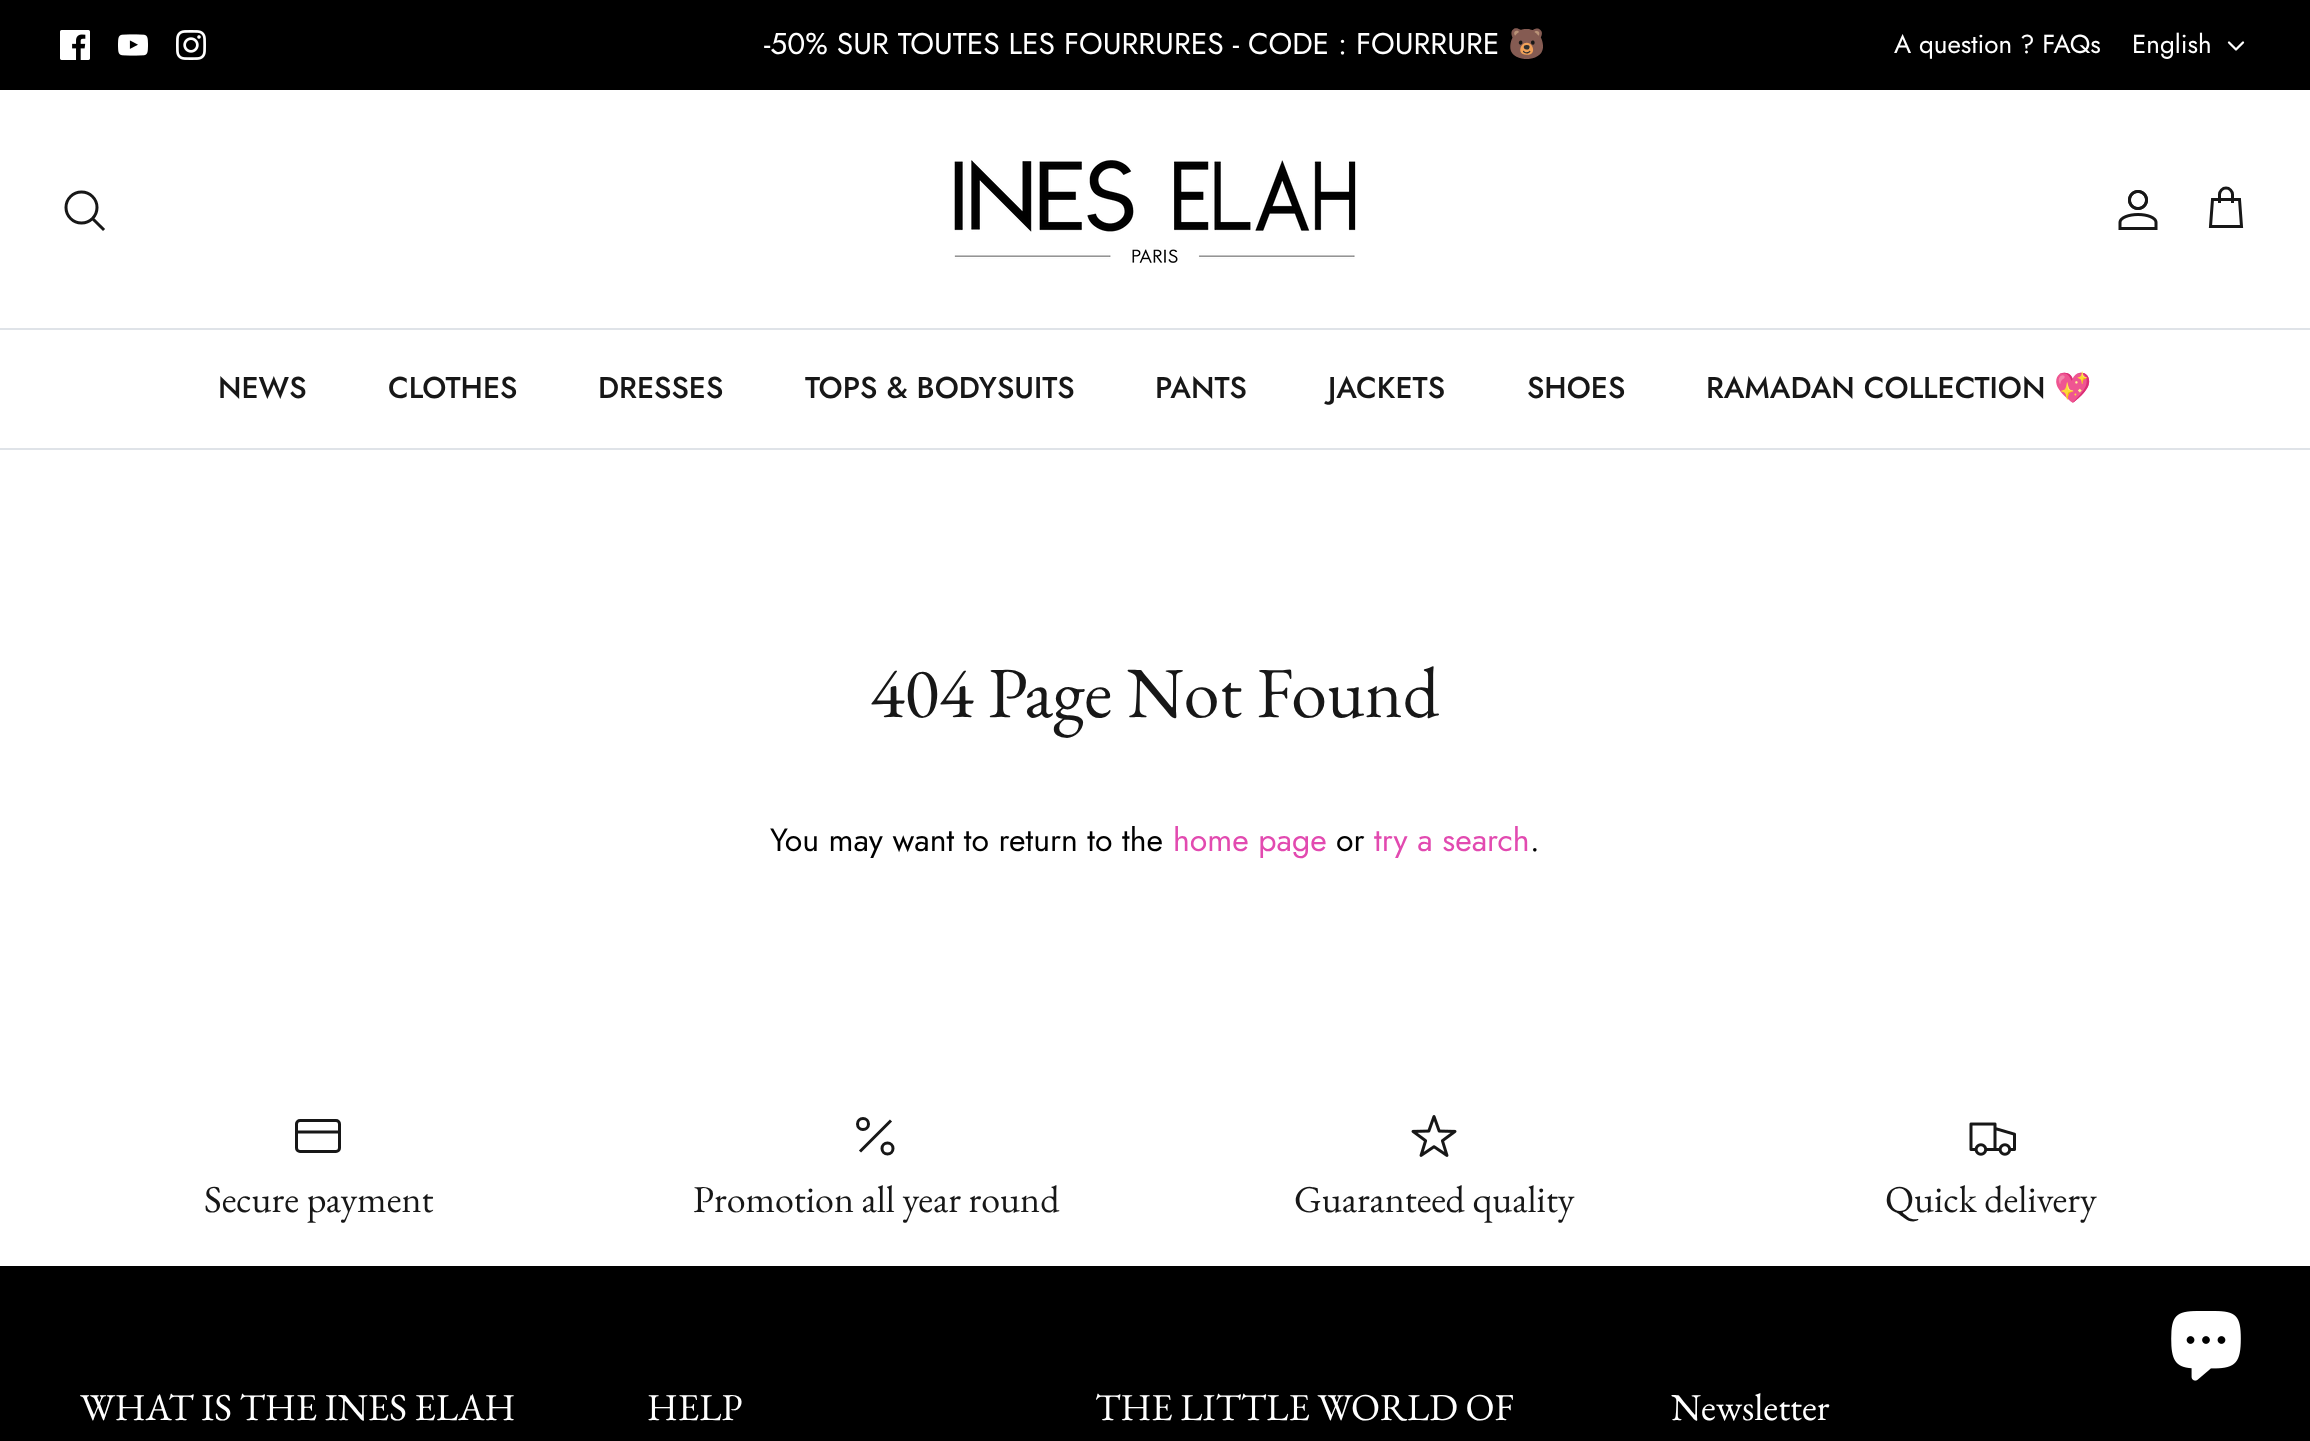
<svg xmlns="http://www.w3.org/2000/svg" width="2310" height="1441">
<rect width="100%" height="100%" fill="#fff"/>
<rect width="2310" height="90" fill="#000"/>
<image x="60" y="30" width="30" height="30" href="media/1.png"/>
<image x="118" y="34" width="30" height="22" href="media/2.png"/>
<image x="176" y="30" width="30" height="30" href="media/3.png"/>
<text x="764" y="54" style="font-family:Jost;font-size:30px;fill:#fff">-50% SUR TOUTES LES FOURRURES - CODE : FOURRURE</text>
<text x="1508" y="54" style="font-family:Noto Color Emoji;font-size:30px;fill:#fff">🐻</text>
<text x="1894" y="53" style="font-family:Jost;font-size:26px;fill:#fff">A question ? FAQs</text>
<text x="2132" y="53" style="font-family:Jost;font-size:26px;fill:#fff">English</text>
<path d="M2229 42.5l7 7l7-7" fill="none" stroke="#fff" stroke-width="2.3" stroke-linecap="round" stroke-linejoin="round"/>
<rect y="328" width="2310" height="2" fill="#dfe3e8"/>
<circle cx="81.5" cy="207.5" r="15.5" fill="none" stroke="#171717" stroke-width="3"/>
<path d="M94 220l9 9" fill="none" stroke="#171717" stroke-width="3" stroke-linecap="square"/>
<image x="954" y="160" width="402" height="104" href="media/4.png"/>
<image x="2118" y="190" width="40" height="40" href="media/5.png"/>
<path d="M2232.5 203v-8.5c0-3.5-3-6.5-6.5-6.5c-3.5 0-6.5 3-6.5 6.5v8.5m-7-3.5h27l2 27h-31z" fill="none" stroke="#171717" stroke-width="3"/>
<rect y="448" width="2310" height="2" fill="#dfe3e8"/>
<text x="218" y="398" style="font-family:Jost;font-size:30px;font-weight:500;fill:#171717">NEWS</text>
<text x="388" y="398" style="font-family:Jost;font-size:30px;font-weight:500;fill:#171717">CLOTHES</text>
<text x="598" y="398" style="font-family:Jost;font-size:30px;font-weight:500;fill:#171717">DRESSES</text>
<text x="805" y="398" style="font-family:Jost;font-size:30px;font-weight:500;fill:#171717">TOPS &amp; BODYSUITS</text>
<text x="1155" y="398" style="font-family:Jost;font-size:30px;font-weight:500;fill:#171717">PANTS</text>
<text x="1328" y="398" style="font-family:Jost;font-size:30px;font-weight:500;fill:#171717">JACKETS</text>
<text x="1527" y="398" style="font-family:Jost;font-size:30px;font-weight:500;fill:#171717">SHOES</text>
<text x="1706" y="398" style="font-family:Jost;font-size:30px;font-weight:500;fill:#171717">RAMADAN COLLECTION</text>
<text x="2054" y="398" style="font-family:Noto Color Emoji;font-size:30px;fill:#171717">💖</text>
<text x="870" y="717" style="font-family:EB Garamond;font-size:72px;fill:#171717">404 Page Not Found</text>
<text x="770" y="851" style="font-family:Jost;font-size:32px;fill:#000">You may want to return to the</text>
<text x="1173" y="851" style="font-family:Jost;font-size:32px;fill:#e24ab0">home page</text>
<text x="1336" y="851" style="font-family:Jost;font-size:32px;fill:#000">or</text>
<text x="1374" y="851" style="font-family:Jost;font-size:32px;fill:#e24ab0">try a search</text>
<text x="1530" y="851" style="font-family:Jost;font-size:32px;fill:#000">.</text>
<rect y="1266" width="2310" height="175" fill="#000"/>
<rect x="296.5" y="1120.5" width="43" height="31" rx="3.5" fill="none" stroke="#171717" stroke-width="3"/>
<path d="M297 1132h42.5" fill="none" stroke="#171717" stroke-width="3"/>
<text x="204" y="1212" style="font-family:EB Garamond;font-size:38px;fill:#171717">Secure payment</text>
<path d="M891 1120.5l-31 31" fill="none" stroke="#171717" stroke-width="3"/>
<circle cx="863" cy="1124" r="5.5" fill="none" stroke="#171717" stroke-width="3"/>
<circle cx="887.5" cy="1148.5" r="5.5" fill="none" stroke="#171717" stroke-width="3"/>
<text x="693" y="1212" style="font-family:EB Garamond;font-size:38px;fill:#171717">Promotion all year round</text>
<image x="1411" y="1115" width="46" height="42" href="media/6.png"/>
<text x="1294" y="1212" style="font-family:EB Garamond;font-size:38px;fill:#171717">Guaranteed quality</text>
<image x="1969" y="1122" width="47" height="34" href="media/7.png"/>
<text x="1885" y="1212" style="font-family:EB Garamond;font-size:38px;fill:#171717">Quick delivery</text>
<text x="80" y="1420" style="font-family:EB Garamond;font-size:38px;fill:#fff">WHAT IS THE INES ELAH</text>
<text x="647" y="1420" style="font-family:EB Garamond;font-size:38px;fill:#fff">HELP</text>
<text x="1095" y="1420" style="font-family:EB Garamond;font-size:38px;fill:#fff">THE LITTLE WORLD OF</text>
<text x="1671" y="1420" style="font-family:EB Garamond;font-size:38px;fill:#fff">Newsletter</text>
<image x="2171" y="1311" width="70" height="70" href="media/8.png"/>
</svg>
